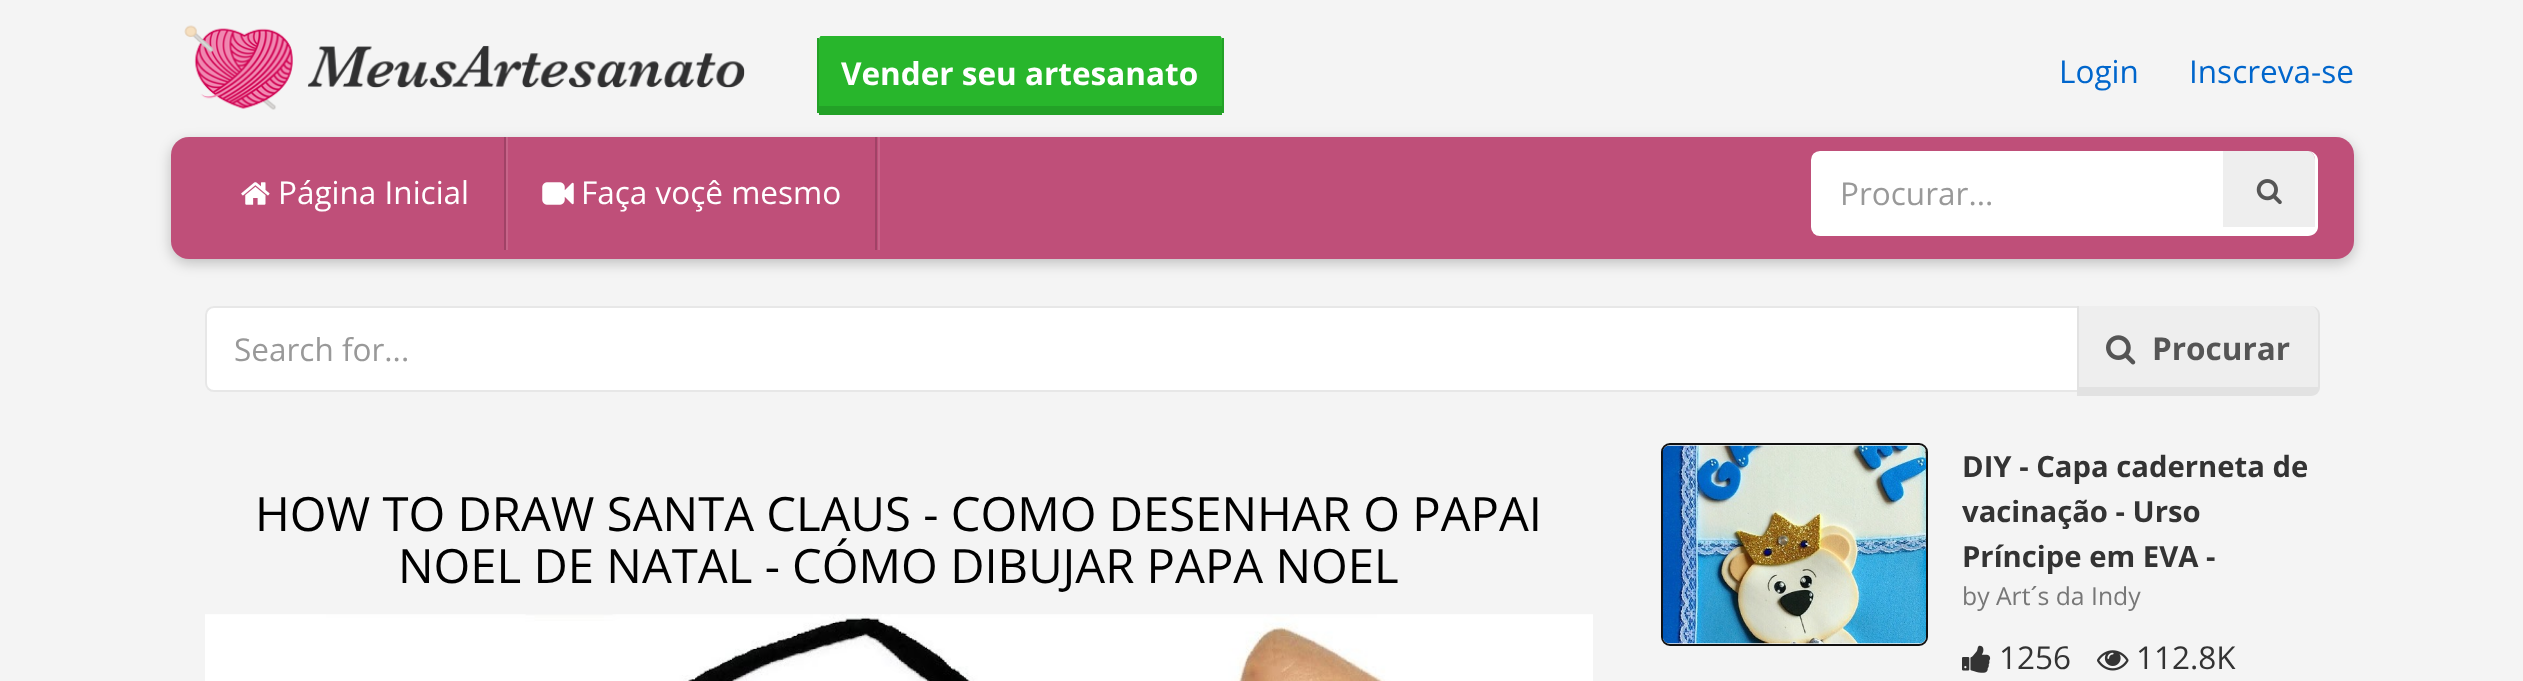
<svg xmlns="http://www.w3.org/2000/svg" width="2523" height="681">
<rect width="100%" height="100%" fill="#f4f4f4"/>
<image x="184" y="25" width="561" height="85" href="media/1.png"/>
<path d="M821 36h399c1 0 2 2 2 4v66h-403v-66c0-2 1-4 2-4z" fill="#28b62c"/>
<rect x="1222" y="38" width="2" height="75" fill="#23a127"/>
<rect x="819" y="106" width="403" height="9" fill="#23a127"/>
<rect x="817" y="38" width="2" height="75" fill="#23a127"/>
<text x="841" y="85" style="font-family:Open Sans;font-size:31.5px;font-weight:bold;fill:#fff">Vender seu artesanato</text>
<text x="2059" y="83" style="font-family:Open Sans;font-size:31.5px;fill:#06c">Login</text>
<text x="2189" y="83" style="font-family:Open Sans;font-size:31.5px;fill:#06c">Inscreva-se</text>
<rect x="171" y="142" width="2183" height="121" rx="18" fill="#00000038" filter="blur(7px)"/>
<rect x="171" y="137" width="2183" height="122" rx="18" fill="#bf4f79"/>
<rect x="504" y="137" width="2" height="113" fill="#a04266"/>
<image x="241" y="182" width="29" height="23" href="media/2.png"/>
<text x="278" y="204" style="font-family:Open Sans;font-size:31.5px;fill:#fff">Página Inicial</text>
<rect x="875" y="137" width="2" height="113" fill="#a04266"/>
<rect x="506" y="137" width="2" height="113" fill="#c76489"/>
<image x="542" y="182" width="32" height="23" href="media/3.png"/>
<text x="581" y="204" style="font-family:Open Sans;font-size:31.5px;fill:#fff">Faça voçê mesmo</text>
<rect x="878" y="137" width="2" height="113" fill="#c76489"/>
<path d="M1820 152h402v83h-402c-4.5 0-8-3.5-8-8v-67c0-4.5 3.5-8 8-8z" fill="#fff" stroke="#fff" stroke-width="2"/>
<text x="1840" y="205" style="font-family:Open Sans;font-size:31.5px;fill:#999">Procurar...</text>
<path d="M2223 151h85c4 0 7 4 7 9v67h-92z" fill="#eee"/>
<path d="M2221 151h87c5 0 10 4 10 9v67c0 5-5 9-10 9h-87zm2 0h85c4 0 7 4 7 9v67h-92z" fill="#fff" fill-rule="evenodd"/>
<image x="2256" y="179" width="26" height="26" href="media/4.png"/>
<path d="M214 307h1864v84h-1864c-4.5 0-8-3.5-8-8v-68c0-4.5 3.5-8 8-8z" fill="#fff" stroke="#e7e7e7" stroke-width="2"/>
<text x="234" y="361" style="font-family:Open Sans;font-size:31.5px;fill:#999">Search for...</text>
<path d="M2079 306h232c3 0 7 4 7 9v72h-239z" fill="#eee"/>
<path d="M2077 306h234c5 0 9 4 9 9v72c0 5-4 9-9 9h-234zm2 0h232c3 0 7 4 7 9v72h-239z" fill="#e2e2e2" fill-rule="evenodd"/>
<image x="2106" y="335" width="30" height="30" href="media/5.png"/>
<text x="2152" y="360" style="font-family:Open Sans;font-size:31.5px;font-weight:bold;fill:#555">Procurar</text>
<text x="255" y="531" style="font-family:Open Sans;font-size:47.25px;fill:#000">HOW TO DRAW SANTA CLAUS - COMO DESENHAR O PAPAI</text>
<text x="398" y="583" style="font-family:Open Sans;font-size:47.25px;fill:#000">NOEL DE NATAL - CÓMO DIBUJAR PAPA NOEL</text>
<image x="205" y="614" width="1388" height="67" href="media/6.png"/>
<rect x="1662" y="444" width="265" height="201" rx="8" fill="none" stroke="#111" stroke-width="2"/>
<image x="1662" y="445" width="264" height="199" href="media/7.png"/>
<text x="1962" y="477" style="font-family:Open Sans;font-size:29.25px;font-weight:bold;fill:#333">DIY - Capa caderneta de</text>
<text x="1962" y="522" style="font-family:Open Sans;font-size:29.25px;font-weight:bold;fill:#333">vacinação - Urso</text>
<text x="1962" y="567" style="font-family:Open Sans;font-size:29.25px;font-weight:bold;fill:#333">Príncipe em EVA -</text>
<text x="1962" y="605" style="font-family:Open Sans;font-size:24.75px;fill:#777">by Art´s da Indy</text>
<image x="1962" y="645" width="29" height="28" href="media/8.png"/>
<text x="1999" y="669" style="font-family:Open Sans;font-size:31.5px;fill:#333">1256</text>
<image x="2097" y="650" width="32" height="21" href="media/9.png"/>
<text x="2136" y="669" style="font-family:Open Sans;font-size:31.5px;fill:#333">112.8K</text>
</svg>
